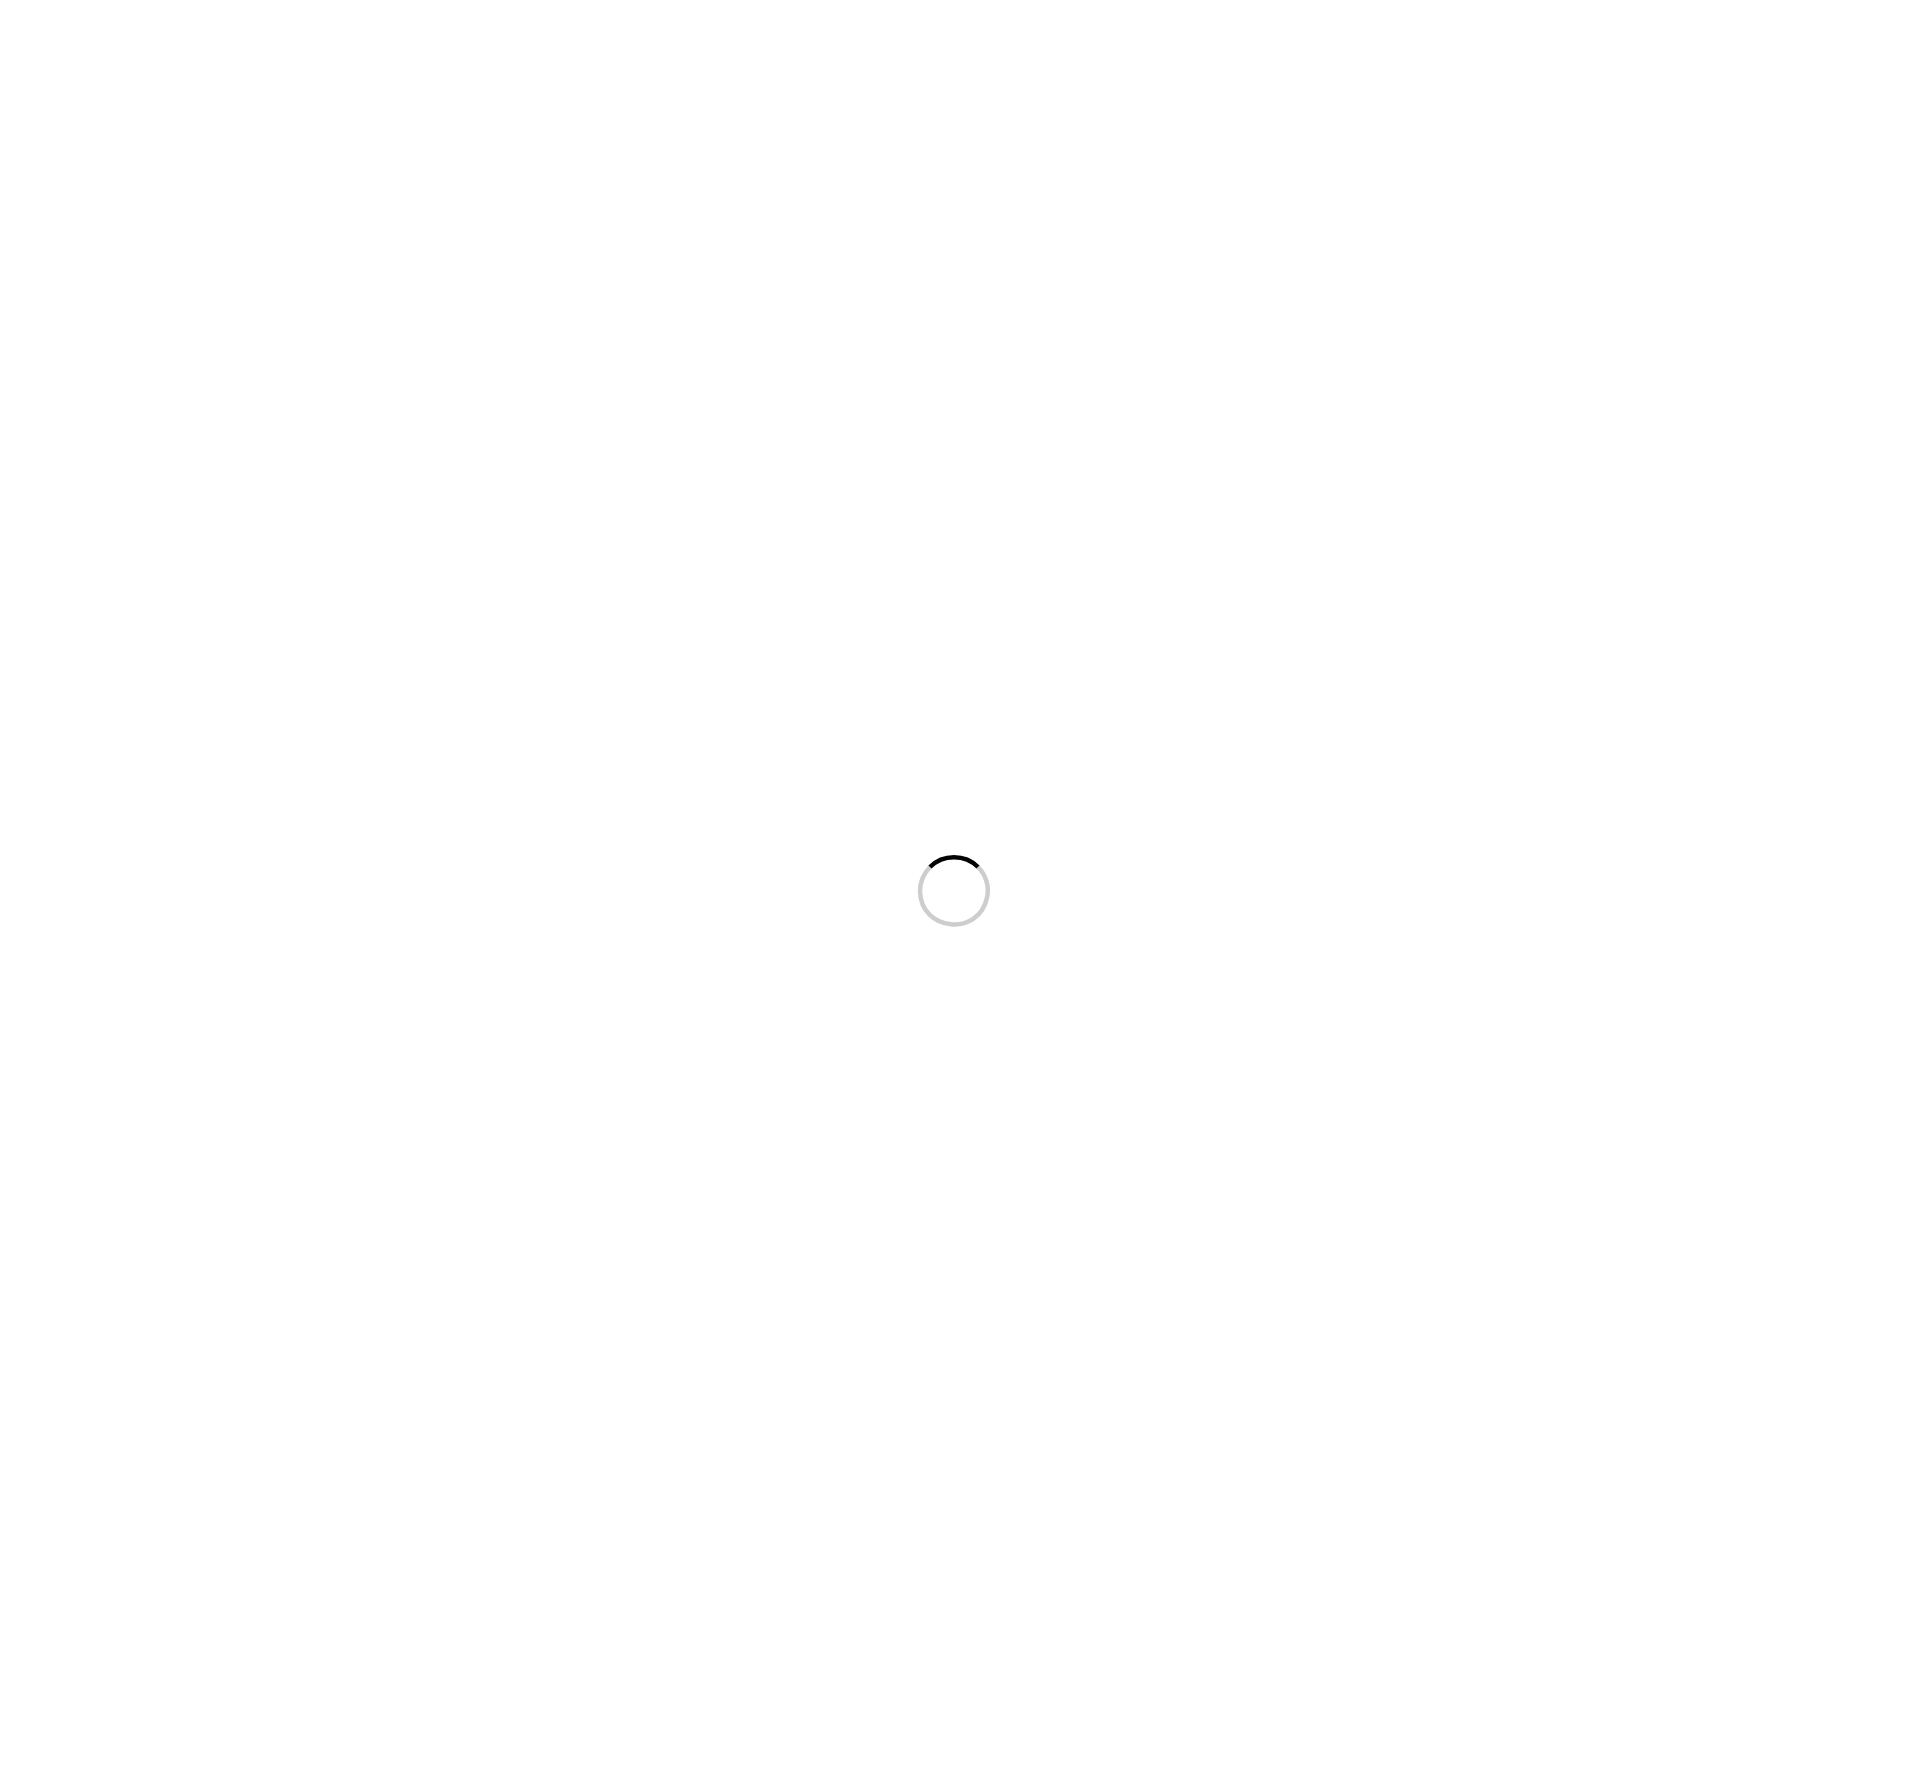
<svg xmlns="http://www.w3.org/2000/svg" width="1908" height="1782">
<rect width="100%" height="100%" fill="#fff"/>
<path d="M930 867c13-13 35-13 48 0" fill="none" stroke="#040404" stroke-width="4.5"/>
<path d="M978 867c8 8 11.5 19.5 9 30.5c-8 39.5-66.5 34-67-6.5c0-9 4-17.5 10-24" fill="none" stroke="#04040433" stroke-width="4.5"/>
</svg>
